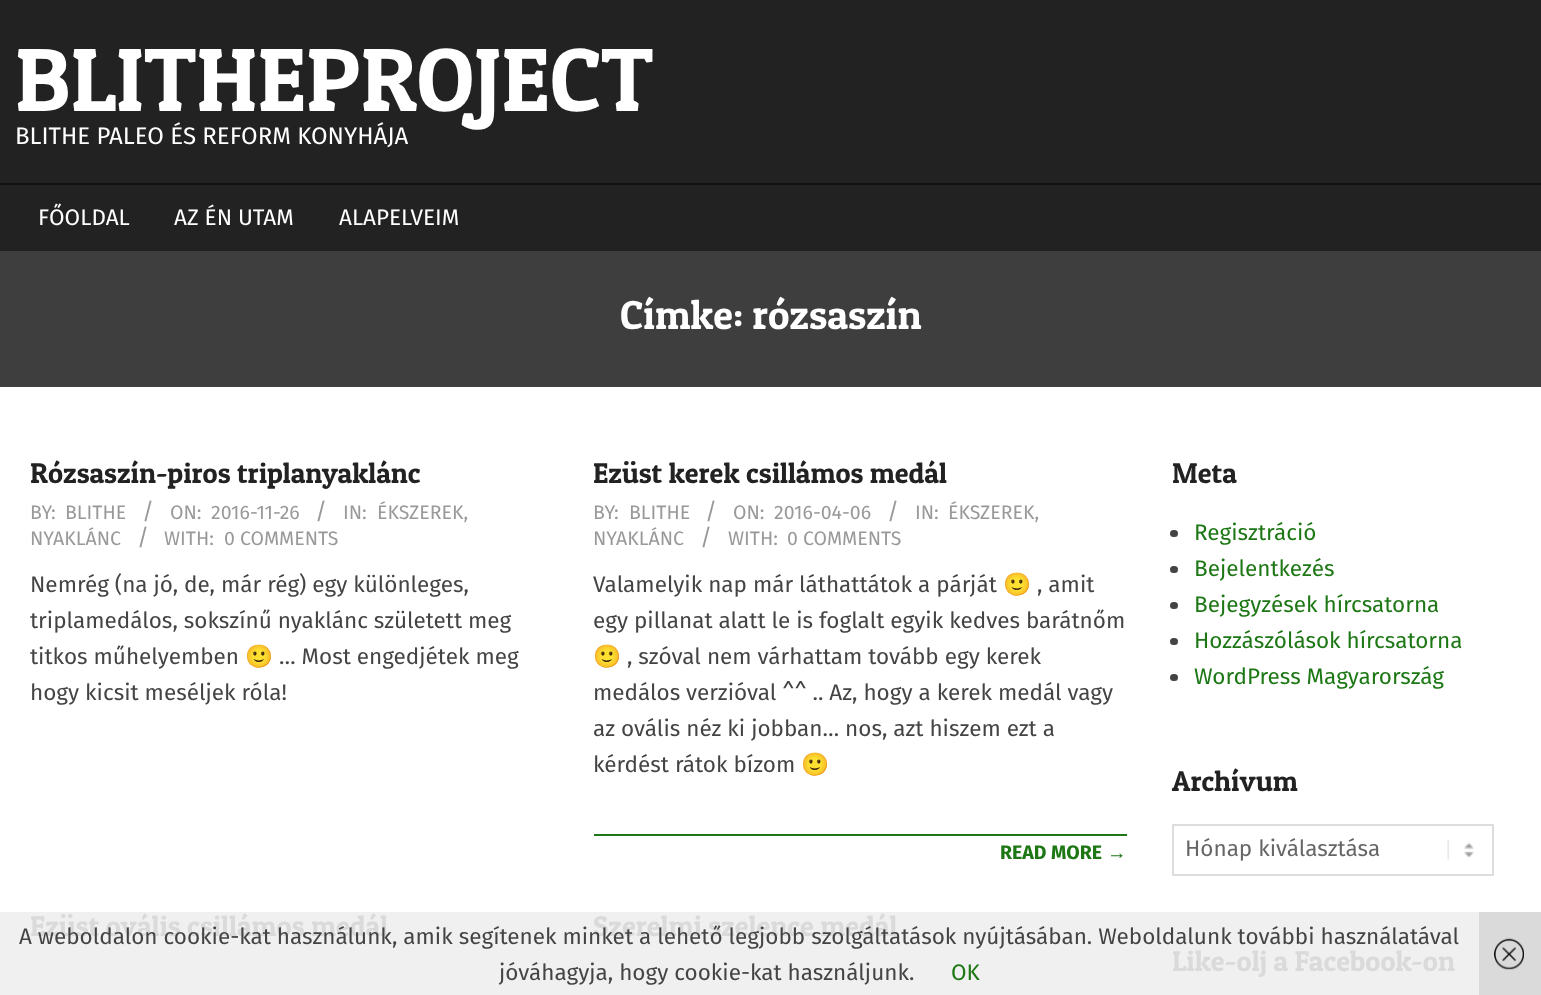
<svg xmlns="http://www.w3.org/2000/svg" width="1541" height="995">
<rect width="100%" height="100%" fill="#222"/>
<text x="15" y="111" style="font-family:Patua One;font-size:90px;fill:#fff">BLITHEPROJECT</text>
<text x="15" y="144" style="font-family:Fira Sans;font-size:24px;fill:#fff">BLITHE PALEO ÉS REFORM KONYHÁJA</text>
<rect y="183" width="1541" height="2" fill="#111"/>
<text x="38" y="225" style="font-family:Fira Sans;font-size:22.5px;fill:#fff">FŐOLDAL</text>
<text x="174" y="225" style="font-family:Fira Sans;font-size:22.5px;fill:#fff">AZ ÉN UTAM</text>
<text x="339" y="225" style="font-family:Fira Sans;font-size:22.5px;fill:#fff">ALAPELVEIM</text>
<rect y="387" width="1541" height="525" fill="#fff"/>
<rect y="912" width="1479" height="83" fill="#f0f0f0"/>
<rect y="251" width="1541" height="136" fill="#3e3e3e"/>
<text x="620" y="329" style="font-family:Patua One;font-size:40.5px;fill:#fff">Címke: rózsaszín</text>
<text x="30" y="483" style="font-family:Patua One;font-size:28.5px;fill:#222">Rózsaszín-piros triplanyaklánc</text>
<text x="30" y="519" style="font-family:Fira Sans;font-size:19.5px;fill:#999">BY:</text>
<text x="65" y="519" style="font-family:Fira Sans;font-size:19.5px;fill:#999">BLITHE</text>
<text x="142" y="519" style="font-family:Fira Sans;font-size:23px;fill:#999">/</text>
<text x="170" y="519" style="font-family:Fira Sans;font-size:19.5px;fill:#999">ON:</text>
<text x="211" y="519" style="font-family:Fira Sans;font-size:19.5px;fill:#999">2016-11-26</text>
<text x="315" y="519" style="font-family:Fira Sans;font-size:23px;fill:#999">/</text>
<text x="343" y="519" style="font-family:Fira Sans;font-size:19.5px;fill:#999">IN:</text>
<text x="377" y="519" style="font-family:Fira Sans;font-size:19.5px;fill:#999">ÉKSZEREK,</text>
<text x="30" y="545" style="font-family:Fira Sans;font-size:19.5px;fill:#999">NYAKLÁNC</text>
<text x="137" y="545" style="font-family:Fira Sans;font-size:23px;fill:#999">/</text>
<text x="164" y="545" style="font-family:Fira Sans;font-size:19.5px;fill:#999">WITH:</text>
<text x="224" y="545" style="font-family:Fira Sans;font-size:19.5px;fill:#999">0 COMMENTS</text>
<text x="30" y="592" style="font-family:Fira Sans;font-size:22.5px;fill:#444">Nemrég (na jó, de, már rég) egy különleges,</text>
<text x="30" y="628" style="font-family:Fira Sans;font-size:22.5px;fill:#444">triplamedálos, sokszínű nyaklánc született meg</text>
<text x="30" y="664" style="font-family:Fira Sans;font-size:22.5px;fill:#444">titkos műhelyemben</text>
<text x="245" y="664" style="font-family:Noto Color Emoji;font-size:22.5px;fill:#444">🙂</text>
<text x="279" y="664" style="font-family:Fira Sans;font-size:22.5px;fill:#444">… Most engedjétek meg</text>
<text x="30" y="700" style="font-family:Fira Sans;font-size:22.5px;fill:#444">hogy kicsit meséljek róla!</text>
<text x="593" y="483" style="font-family:Patua One;font-size:28.5px;fill:#222">Ezüst kerek csillámos medál</text>
<text x="593" y="519" style="font-family:Fira Sans;font-size:19.5px;fill:#999">BY:</text>
<text x="629" y="519" style="font-family:Fira Sans;font-size:19.5px;fill:#999">BLITHE</text>
<text x="705" y="519" style="font-family:Fira Sans;font-size:23px;fill:#999">/</text>
<text x="733" y="519" style="font-family:Fira Sans;font-size:19.5px;fill:#999">ON:</text>
<text x="774" y="519" style="font-family:Fira Sans;font-size:19.5px;fill:#999">2016-04-06</text>
<text x="887" y="519" style="font-family:Fira Sans;font-size:23px;fill:#999">/</text>
<text x="915" y="519" style="font-family:Fira Sans;font-size:19.5px;fill:#999">IN:</text>
<text x="948" y="519" style="font-family:Fira Sans;font-size:19.5px;fill:#999">ÉKSZEREK,</text>
<text x="593" y="545" style="font-family:Fira Sans;font-size:19.5px;fill:#999">NYAKLÁNC</text>
<text x="700" y="545" style="font-family:Fira Sans;font-size:23px;fill:#999">/</text>
<text x="728" y="545" style="font-family:Fira Sans;font-size:19.5px;fill:#999">WITH:</text>
<text x="787" y="545" style="font-family:Fira Sans;font-size:19.5px;fill:#999">0 COMMENTS</text>
<text x="593" y="592" style="font-family:Fira Sans;font-size:22.5px;fill:#444">Valamelyik nap már láthattátok a párját</text>
<text x="1003" y="592" style="font-family:Noto Color Emoji;font-size:22.5px;fill:#444">🙂</text>
<text x="1037" y="592" style="font-family:Fira Sans;font-size:22.5px;fill:#444">, amit</text>
<text x="593" y="628" style="font-family:Fira Sans;font-size:22.5px;fill:#444">egy pillanat alatt le is foglalt egyik kedves barátnőm</text>
<text x="593" y="664" style="font-family:Noto Color Emoji;font-size:22.5px;fill:#444">🙂</text>
<text x="627" y="664" style="font-family:Fira Sans;font-size:22.5px;fill:#444">, szóval nem várhattam tovább egy kerek</text>
<text x="593" y="700" style="font-family:Fira Sans;font-size:22.5px;fill:#444">medálos verzióval ^^ .. Az, hogy a kerek medál vagy</text>
<text x="593" y="736" style="font-family:Fira Sans;font-size:22.5px;fill:#444">az ovális néz ki jobban… nos, azt hiszem ezt a</text>
<text x="593" y="772" style="font-family:Fira Sans;font-size:22.5px;fill:#444">kérdést rátok bízom</text>
<text x="801" y="772" style="font-family:Noto Color Emoji;font-size:22.5px;fill:#444">🙂</text>
<rect x="594" y="834" width="533" height="2" fill="#1c7714"/>
<text x="1000" y="859" style="font-family:Fira Sans;font-size:19.5px;font-weight:bold;fill:#1c7714">READ MORE</text>
<text x="1107" y="859" style="font-family:Liberation Sans;font-size:19.5px;font-weight:bold;fill:#1c7714">→</text>
<text x="30" y="936" style="font-family:Patua One;font-size:28.5px;fill:#dadada">Ezüst ovális csillámos medál</text>
<text x="593" y="936" style="font-family:Patua One;font-size:28.5px;fill:#dadada">Szerelmi szelence medál</text>
<text x="1172" y="483" style="font-family:Patua One;font-size:28.5px;fill:#222">Meta</text>
<rect x="1170" y="530" width="8" height="7" rx="3.5" fill="#444"/>
<text x="1194" y="540" style="font-family:Fira Sans;font-size:22.5px;fill:#1c7714">Regisztráció</text>
<rect x="1170" y="566" width="8" height="7" rx="3.5" fill="#444"/>
<text x="1194" y="576" style="font-family:Fira Sans;font-size:22.5px;fill:#1c7714">Bejelentkezés</text>
<rect x="1170" y="602" width="8" height="7" rx="3.5" fill="#444"/>
<text x="1194" y="612" style="font-family:Fira Sans;font-size:22.5px;fill:#1c7714">Bejegyzések hírcsatorna</text>
<rect x="1170" y="638" width="8" height="7" rx="3.5" fill="#444"/>
<text x="1194" y="648" style="font-family:Fira Sans;font-size:22.5px;fill:#1c7714">Hozzászólások hírcsatorna</text>
<rect x="1170" y="674" width="8" height="7" rx="3.5" fill="#444"/>
<text x="1194" y="684" style="font-family:Fira Sans;font-size:22.5px;fill:#1c7714">WordPress Magyarország</text>
<text x="1172" y="791" style="font-family:Patua One;font-size:28.5px;fill:#222">Archívum</text>
<image x="1447" y="840" width="27" height="20" href="media/1.png"/>
<rect x="1173" y="825" width="320" height="50" fill="none" stroke="#ddd" stroke-width="2"/>
<text x="1185" y="856" style="font-family:Fira Sans;font-size:22.5px;fill:#666">Hónap kiválasztása</text>
<text x="1172" y="971" style="font-family:Patua One;font-size:28.5px;fill:#dadada">Like-olj a Facebook-on</text>
<text x="19" y="944" style="font-family:Fira Sans;font-size:22.5px;fill:#444">A weboldalon cookie-kat használunk, amik segítenek minket a lehető legjobb szolgáltatások nyújtásában. Weboldalunk további használatával</text>
<text x="499" y="980" style="font-family:Fira Sans;font-size:22.5px;fill:#444">jóváhagyja, hogy cookie-kat használjunk.</text>
<text x="951" y="980" style="font-family:Fira Sans;font-size:22.5px;fill:#1c7714">OK</text>
<rect x="1479" y="912" width="62" height="83" fill="#dadada"/>
<image x="1494" y="938" width="30" height="32" href="media/2.png"/>
</svg>
